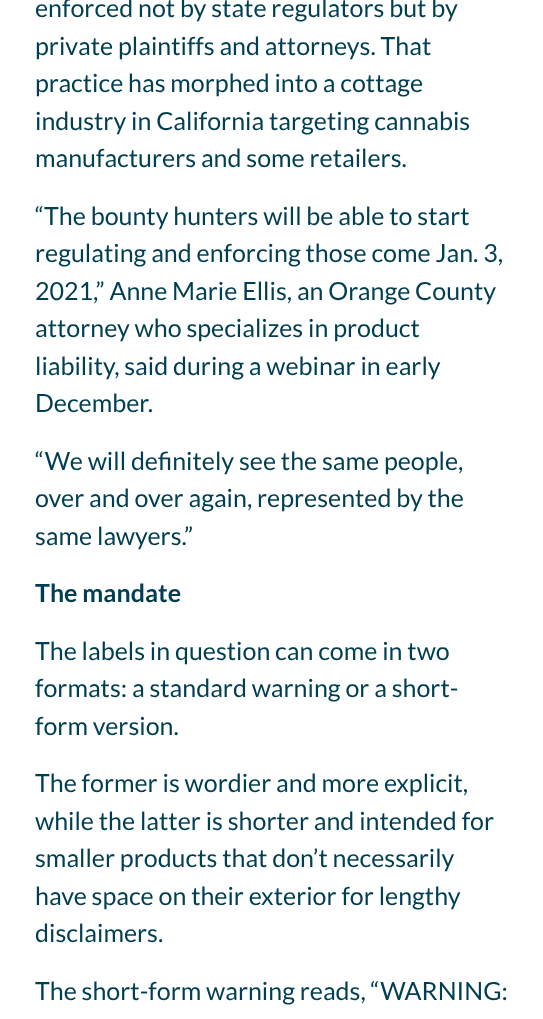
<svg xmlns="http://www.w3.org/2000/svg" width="543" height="1019">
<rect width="100%" height="100%" fill="#fff"/>
<text x="35" y="17" style="font-family:Lato;font-size:25px;fill:#003e51">enforced not by state regulators but by</text>
<text x="35" y="55" style="font-family:Lato;font-size:25px;fill:#003e51">private plaintiffs and attorneys. That</text>
<text x="35" y="92" style="font-family:Lato;font-size:25px;fill:#003e51">practice has morphed into a cottage</text>
<text x="35" y="130" style="font-family:Lato;font-size:25px;fill:#003e51">industry in California targeting cannabis</text>
<text x="35" y="167" style="font-family:Lato;font-size:25px;fill:#003e51">manufacturers and some retailers.</text>
<text x="35" y="225" style="font-family:Lato;font-size:25px;fill:#003e51">“The bounty hunters will be able to start</text>
<text x="35" y="262" style="font-family:Lato;font-size:25px;fill:#003e51">regulating and enforcing those come Jan. 3,</text>
<text x="35" y="300" style="font-family:Lato;font-size:25px;fill:#003e51">2021,” Anne Marie Ellis, an Orange County</text>
<text x="35" y="337" style="font-family:Lato;font-size:25px;fill:#003e51">attorney who specializes in product</text>
<text x="35" y="375" style="font-family:Lato;font-size:25px;fill:#003e51">liability, said during a webinar in early</text>
<text x="35" y="412" style="font-family:Lato;font-size:25px;fill:#003e51">December.</text>
<text x="35" y="470" style="font-family:Lato;font-size:25px;fill:#003e51">“We will definitely see the same people,</text>
<text x="35" y="507" style="font-family:Lato;font-size:25px;fill:#003e51">over and over again, represented by the</text>
<text x="35" y="545" style="font-family:Lato;font-size:25px;fill:#003e51">same lawyers.”</text>
<text x="35" y="602" style="font-family:Lato;font-size:25px;font-weight:bold;fill:#003e51">The mandate</text>
<text x="35" y="660" style="font-family:Lato;font-size:25px;fill:#003e51">The labels in question can come in two</text>
<text x="35" y="697" style="font-family:Lato;font-size:25px;fill:#003e51">formats: a standard warning or a short-</text>
<text x="35" y="735" style="font-family:Lato;font-size:25px;fill:#003e51">form version.</text>
<text x="35" y="792" style="font-family:Lato;font-size:25px;fill:#003e51">The former is wordier and more explicit,</text>
<text x="35" y="830" style="font-family:Lato;font-size:25px;fill:#003e51">while the latter is shorter and intended for</text>
<text x="35" y="867" style="font-family:Lato;font-size:25px;fill:#003e51">smaller products that don’t necessarily</text>
<text x="35" y="905" style="font-family:Lato;font-size:25px;fill:#003e51">have space on their exterior for lengthy</text>
<text x="35" y="942" style="font-family:Lato;font-size:25px;fill:#003e51">disclaimers.</text>
<text x="35" y="1000" style="font-family:Lato;font-size:25px;fill:#003e51">The short-form warning reads, “WARNING:</text>
</svg>
